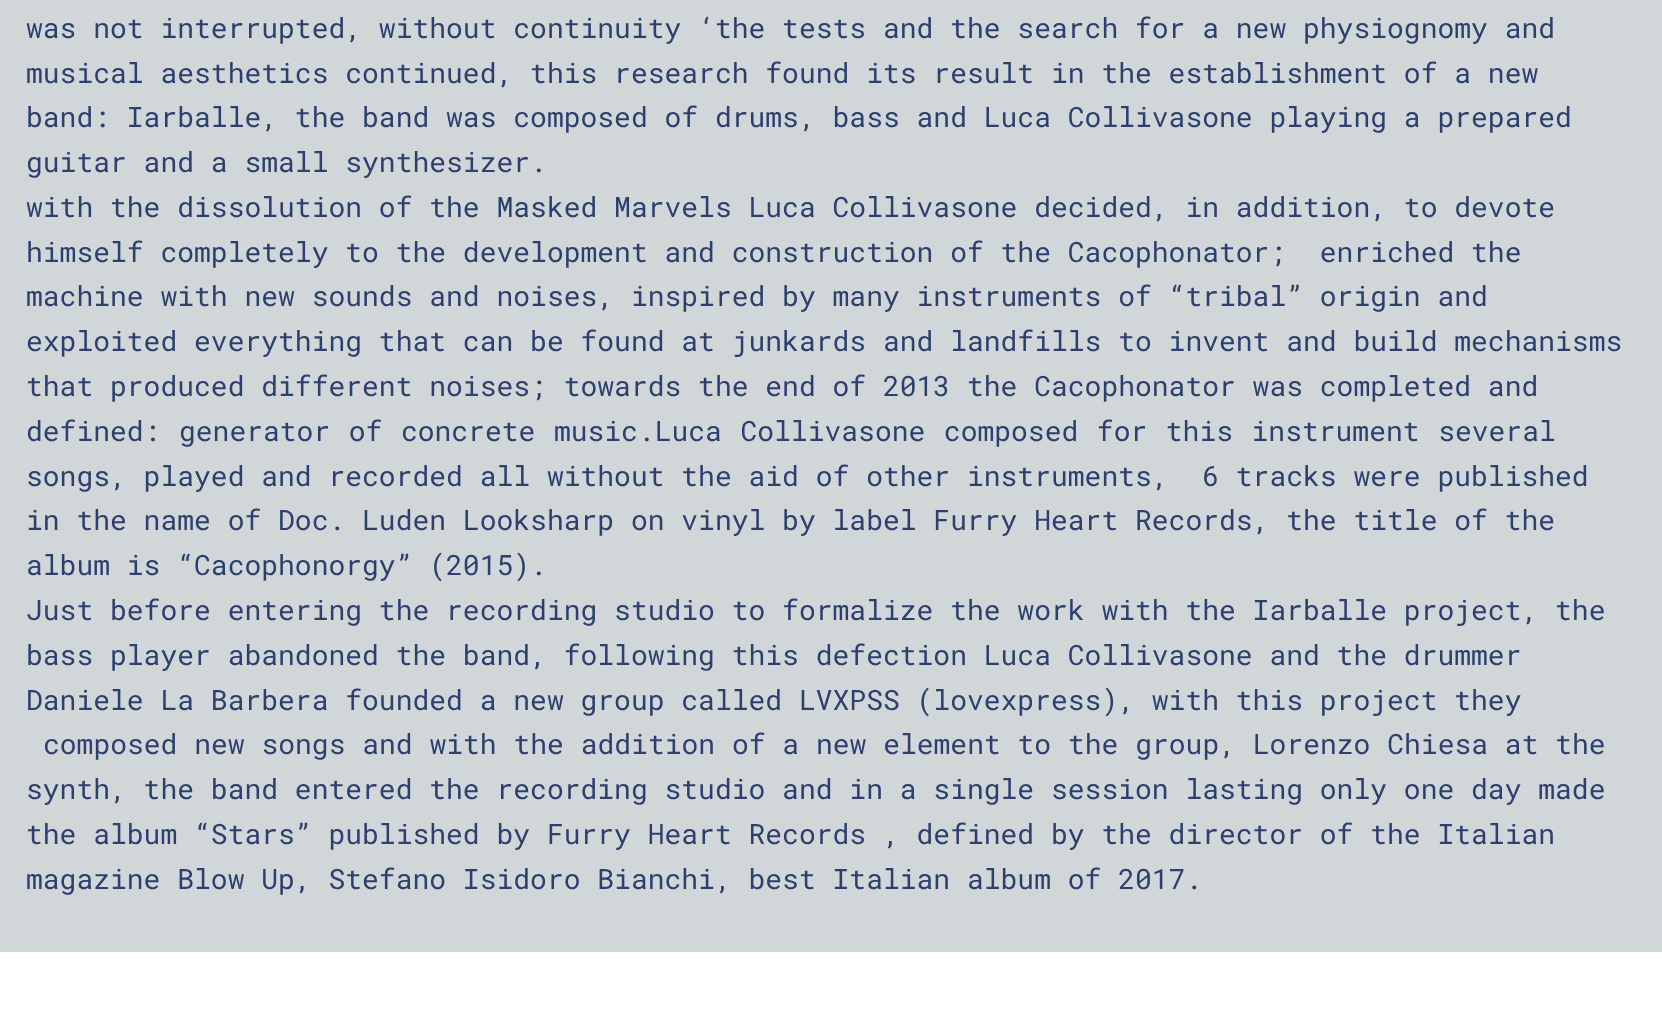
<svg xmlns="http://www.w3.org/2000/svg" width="1662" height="1025">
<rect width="100%" height="100%" fill="#d1d7d9"/>
<text x="26" y="38" style="font-family:Roboto Mono;font-size:28px;fill:#2c3f6e">was not interrupted, without continuity ‘the tests and the search for a new physiognomy and</text>
<text x="26" y="83" style="font-family:Roboto Mono;font-size:28px;fill:#2c3f6e">musical aesthetics continued, this research found its result in the establishment of a new</text>
<text x="26" y="127" style="font-family:Roboto Mono;font-size:28px;fill:#2c3f6e">band: Iarballe, the band was composed of drums, bass and Luca Collivasone playing a prepared</text>
<text x="26" y="172" style="font-family:Roboto Mono;font-size:28px;fill:#2c3f6e">guitar and a small synthesizer.</text>
<text x="26" y="217" style="font-family:Roboto Mono;font-size:28px;fill:#2c3f6e">with the dissolution of the Masked Marvels Luca Collivasone decided, in addition, to devote</text>
<text x="26" y="262" style="font-family:Roboto Mono;font-size:28px;fill:#2c3f6e" xml:space="preserve">himself completely to the development and construction of the Cacophonator;  enriched the</text>
<text x="26" y="306" style="font-family:Roboto Mono;font-size:28px;fill:#2c3f6e">machine with new sounds and noises, inspired by many instruments of “tribal” origin and</text>
<text x="26" y="351" style="font-family:Roboto Mono;font-size:28px;fill:#2c3f6e">exploited everything that can be found at junkards and landfills to invent and build mechanisms</text>
<text x="26" y="396" style="font-family:Roboto Mono;font-size:28px;fill:#2c3f6e">that produced different noises; towards the end of 2013 the Cacophonator was completed and</text>
<text x="26" y="441" word-spacing="1.75" style="font-family:Roboto Mono;font-size:28px;fill:#2c3f6e">defined: generator of concrete music.Luca Collivasone composed for this instrument several</text>
<text x="26" y="486" style="font-family:Roboto Mono;font-size:28px;fill:#2c3f6e" xml:space="preserve">songs, played and recorded all without the aid of other instruments,  6 tracks were published</text>
<text x="26" y="530" style="font-family:Roboto Mono;font-size:28px;fill:#2c3f6e">in the name of Doc. Luden Looksharp on vinyl by label Furry Heart Records, the title of the</text>
<text x="26" y="575" style="font-family:Roboto Mono;font-size:28px;fill:#2c3f6e">album is “Cacophonorgy” (2015).</text>
<text x="26" y="620" style="font-family:Roboto Mono;font-size:28px;fill:#2c3f6e">Just before entering the recording studio to formalize the work with the Iarballe project, the</text>
<text x="26" y="665" style="font-family:Roboto Mono;font-size:28px;fill:#2c3f6e">bass player abandoned the band, following this defection Luca Collivasone and the drummer</text>
<text x="26" y="710" style="font-family:Roboto Mono;font-size:28px;fill:#2c3f6e">Daniele La Barbera founded a new group called LVXPSS (lovexpress), with this project they</text>
<text x="43" y="754" style="font-family:Roboto Mono;font-size:28px;fill:#2c3f6e">composed new songs and with the addition of a new element to the group, Lorenzo Chiesa at the</text>
<text x="26" y="799" style="font-family:Roboto Mono;font-size:28px;fill:#2c3f6e">synth, the band entered the recording studio and in a single session lasting only one day made</text>
<text x="26" y="844" style="font-family:Roboto Mono;font-size:28px;fill:#2c3f6e">the album “Stars” published by Furry Heart Records , defined by the director of the Italian</text>
<text x="26" y="889" style="font-family:Roboto Mono;font-size:28px;fill:#2c3f6e">magazine Blow Up, Stefano Isidoro Bianchi, best Italian album of 2017.</text>
<rect y="952" width="1662" height="73" fill="#fff"/>
</svg>
